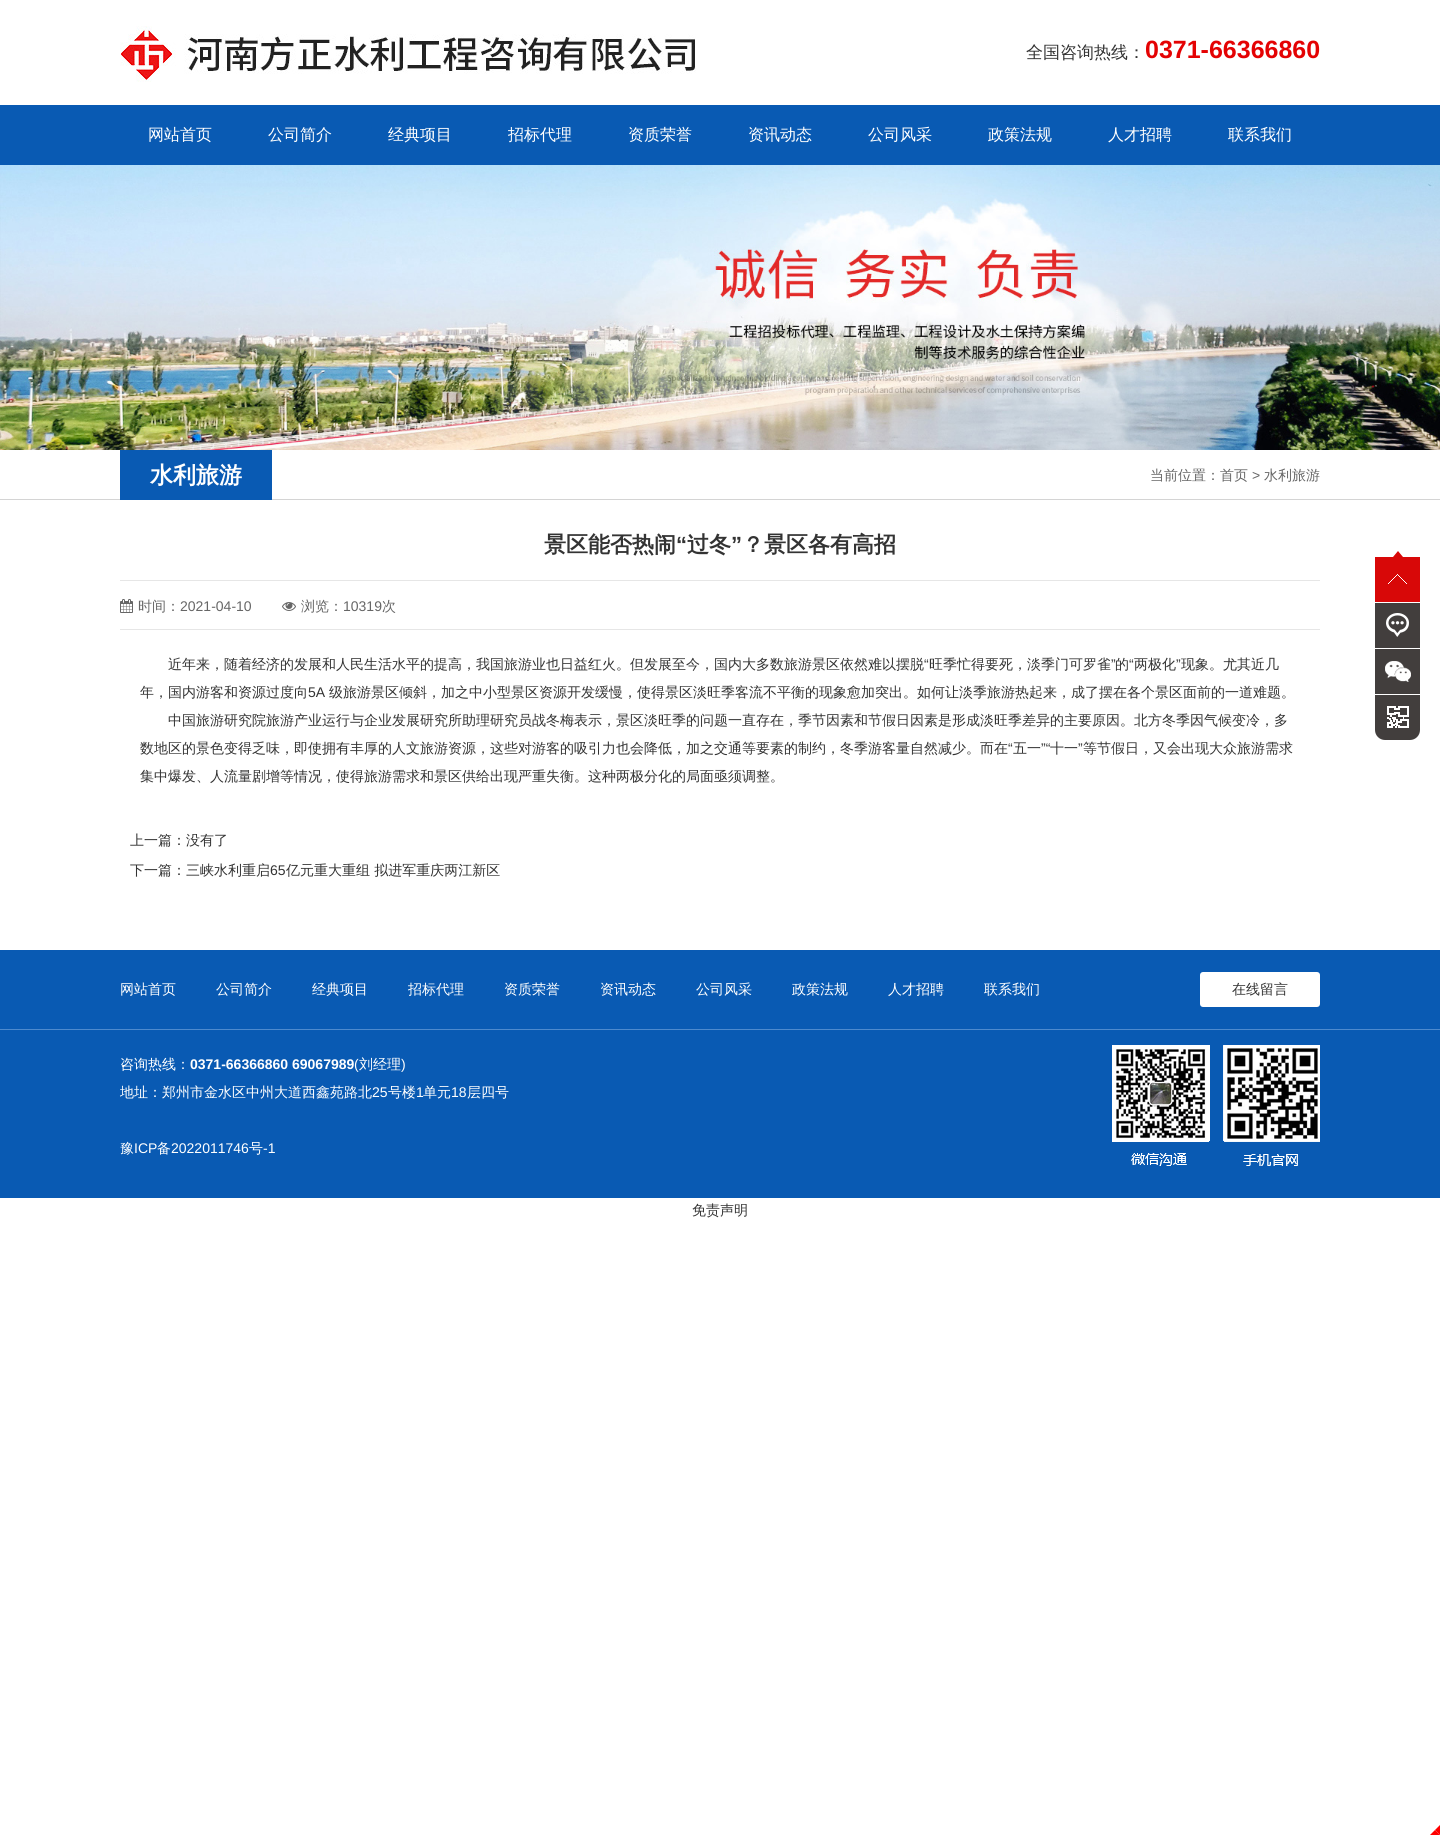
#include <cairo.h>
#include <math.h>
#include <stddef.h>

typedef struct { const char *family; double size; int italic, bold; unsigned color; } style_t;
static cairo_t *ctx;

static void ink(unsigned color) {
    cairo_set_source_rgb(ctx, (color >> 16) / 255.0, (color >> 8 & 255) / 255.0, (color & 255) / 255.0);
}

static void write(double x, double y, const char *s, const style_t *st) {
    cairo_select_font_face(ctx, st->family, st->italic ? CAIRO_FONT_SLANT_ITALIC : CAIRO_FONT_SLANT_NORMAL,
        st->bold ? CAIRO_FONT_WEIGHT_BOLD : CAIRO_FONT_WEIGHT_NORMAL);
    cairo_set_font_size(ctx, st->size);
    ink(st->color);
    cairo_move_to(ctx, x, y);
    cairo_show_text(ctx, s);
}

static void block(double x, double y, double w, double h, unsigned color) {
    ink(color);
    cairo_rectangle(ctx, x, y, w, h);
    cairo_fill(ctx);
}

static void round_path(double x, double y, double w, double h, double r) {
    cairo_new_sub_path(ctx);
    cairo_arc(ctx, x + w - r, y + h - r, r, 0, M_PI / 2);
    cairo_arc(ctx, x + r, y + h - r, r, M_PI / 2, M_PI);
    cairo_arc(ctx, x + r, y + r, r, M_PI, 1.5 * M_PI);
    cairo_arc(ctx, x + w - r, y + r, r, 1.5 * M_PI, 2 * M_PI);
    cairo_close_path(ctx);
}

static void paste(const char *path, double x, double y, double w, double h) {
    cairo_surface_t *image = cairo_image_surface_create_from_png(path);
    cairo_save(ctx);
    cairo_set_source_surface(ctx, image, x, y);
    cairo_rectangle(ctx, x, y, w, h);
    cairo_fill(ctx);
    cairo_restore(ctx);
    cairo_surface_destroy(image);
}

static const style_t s1 = {"WenQuanYi Zen Hei Medium", 17, 0, 0, 0x333333};
static const style_t s2 = {"Liberation Sans", 25, 0, 1, 0xe40203};
static const style_t s3 = {"WenQuanYi Zen Hei Medium", 16, 0, 0, 0xffffff};
static const style_t s4 = {"WenQuanYi Zen Hei", 23, 0, 1, 0xffffff};
static const style_t s5 = {"WenQuanYi Zen Hei Medium", 14, 0, 0, 0x666666};
static const style_t s6 = {"Liberation Sans", 14, 0, 0, 0x666666};
static const style_t s7 = {"WenQuanYi Zen Hei", 22, 0, 1, 0x333333};
static const style_t s8 = {"Liberation Sans", 22, 0, 1, 0x333333};
static const style_t s9 = {"WenQuanYi Zen Hei Medium", 14, 0, 0, 0x333333};
static const style_t s10 = {"Liberation Sans", 14, 0, 0, 0x333333};
static const style_t s11 = {"WenQuanYi Zen Hei Medium", 14, 0, 0, 0xffffff};
static const style_t s12 = {"Liberation Sans", 14, 0, 1, 0xffffff};
static const style_t s13 = {"Liberation Sans", 14, 0, 0, 0xffffff};

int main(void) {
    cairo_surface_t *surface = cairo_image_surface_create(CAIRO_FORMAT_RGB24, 1440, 1835);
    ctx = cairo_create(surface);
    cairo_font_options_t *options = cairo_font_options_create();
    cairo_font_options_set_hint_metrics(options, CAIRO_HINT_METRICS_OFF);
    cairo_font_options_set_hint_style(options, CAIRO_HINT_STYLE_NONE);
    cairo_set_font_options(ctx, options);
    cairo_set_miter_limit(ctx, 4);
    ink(0xffffff);
    cairo_paint(ctx);
    paste("pic1.png", 120, 26, 576, 56);
    write(1026, 58, "全国咨询热线：", &s1);
    write(1145, 58, "0371-66366860", &s2);
    block(0, 105, 1440, 60, 0x095ab3);
    write(148, 140, "网站首页", &s3);
    write(268, 140, "公司简介", &s3);
    write(388, 140, "经典项目", &s3);
    write(508, 140, "招标代理", &s3);
    write(628, 140, "资质荣誉", &s3);
    write(748, 140, "资讯动态", &s3);
    write(868, 140, "公司风采", &s3);
    write(988, 140, "政策法规", &s3);
    write(1108, 140, "人才招聘", &s3);
    write(1228, 140, "联系我们", &s3);
    paste("pic2.png", 0, 165, 1440, 285);
    block(0, 499, 1440, 1, 0xd4d4d4);
    block(120, 450, 152, 50, 0x095ab3);
    write(150, 483, "水利旅游", &s4);
    write(1150, 480, "当前位置：首页", &s5);
    write(1252, 480, ">", &s6);
    write(1264, 480, "水利旅游", &s5);
    write(544, 552, "景区能否热闹", &s7);
    write(676, 552, "“", &s8);
    write(687, 552, "过冬", &s7);
    write(731, 552, "”", &s8);
    write(742, 552, "？景区各有高招", &s7);
    block(120, 580, 1200, 1, 0xe6e6e6);
    block(120, 629, 1200, 1, 0xe6e6e6);
    paste("pic3.png", 120, 599, 13, 14);
    write(138, 611, "时间：", &s5);
    write(180, 611, "2021-04-10", &s6);
    paste("pic4.png", 282, 602, 14, 9);
    write(301, 611, "浏览：", &s5);
    write(343, 611, "10319", &s6);
    write(382, 611, "次", &s5);
    write(168, 669, "近年来，随着经济的发展和人民生活水平的提高，我国旅游业也日益红火。但发展至今，国内大多数旅游景区依然难以摆脱", &s9);
    write(924, 669, "“", &s10);
    write(929, 669, "旺季忙得要死，淡季门可罗雀", &s9);
    write(1111, 669, "”", &s10);
    write(1115, 669, "的", &s9);
    write(1129, 669, "“", &s10);
    write(1134, 669, "两极化", &s9);
    write(1176, 669, "”", &s10);
    write(1181, 669, "现象。尤其近几", &s9);
    write(140, 697, "年，国内游客和资源过度向", &s9);
    write(308, 697, "5A", &s10);
    write(329, 697, "级旅游景区倾斜，加之中小型景区资源开发缓慢，使得景区淡旺季客流不平衡的现象愈加突出。如何让淡季旅游热起来，成了摆在各个景区面前的一道难题。", &s9);
    write(168, 725, "中国旅游研究院旅游产业运行与企业发展研究所助理研究员战冬梅表示，景区淡旺季的问题一直存在，季节因素和节假日因素是形成淡旺季差异的主要原因。北方冬季因气候变冷，多", &s9);
    write(140, 753, "数地区的景色变得乏味，即使拥有丰厚的人文旅游资源，这些对游客的吸引力也会降低，加之交通等要素的制约，冬季游客量自然减少。而在", &s9);
    write(1008, 753, "“", &s10);
    write(1013, 753, "五一", &s9);
    write(1041, 753, "”“", &s10);
    write(1050, 753, "十一", &s9);
    write(1078, 753, "”", &s10);
    write(1083, 753, "等节假日，又会出现大众旅游需求", &s9);
    write(140, 781, "集中爆发、人流量剧增等情况，使得旅游需求和景区供给出现严重失衡。这种两极分化的局面亟须调整。", &s9);
    write(130, 845, "上一篇：没有了", &s9);
    write(130, 875, "下一篇：三峡水利重启", &s9);
    write(270, 875, "65", &s10);
    write(286, 875, "亿元重大重组 拟进军重庆两江新区", &s9);
    paste("pic5.png", 1393, 551, 10, 6);
    block(1375, 557, 45, 45, 0xd80808);
    paste("pic6.png", 1388, 574, 19, 10);
    block(1375, 603, 45, 45, 0x423e3d);
    paste("pic7.png", 1386, 613, 23, 24);
    block(1375, 649, 45, 45, 0x423e3d);
    paste("pic8.png", 1385, 661, 26, 21);
    cairo_new_path(ctx);
    cairo_move_to(ctx, 1375, 695);
    cairo_line_to(ctx, 1420, 695);
    cairo_line_to(ctx, 1420, 730);
    cairo_curve_to(ctx, 1420, 735.5, 1415.5, 740, 1410, 740);
    cairo_line_to(ctx, 1385, 740);
    cairo_curve_to(ctx, 1379.5, 740, 1375, 735.5, 1375, 730);
    cairo_close_path(ctx);
    cairo_fill(ctx);
    paste("pic9.png", 1387, 706, 22, 22);
    block(0, 950, 1440, 248, 0x095ab3);
    block(0, 1029, 1440, 1, 0x4d8ace);
    write(120, 994, "网站首页", &s11);
    write(216, 994, "公司简介", &s11);
    write(312, 994, "经典项目", &s11);
    write(408, 994, "招标代理", &s11);
    write(504, 994, "资质荣誉", &s11);
    write(600, 994, "资讯动态", &s11);
    write(696, 994, "公司风采", &s11);
    write(792, 994, "政策法规", &s11);
    write(888, 994, "人才招聘", &s11);
    write(984, 994, "联系我们", &s11);
    round_path(1200, 972, 120, 35, 3);
    cairo_fill(ctx);
    write(1232, 994, "在线留言", &s9);
    write(120, 1069, "咨询热线：", &s11);
    write(190, 1069, "0371-66366860 69067989", &s12);
    write(354, 1069, "(", &s13);
    write(359, 1069, "刘经理", &s11);
    write(401, 1069, ")", &s13);
    write(120, 1097, "地址：郑州市金水区中州大道西鑫苑路北", &s11);
    write(372, 1097, "25", &s13);
    write(388, 1097, "号楼", &s11);
    write(416, 1097, "1", &s13);
    write(423, 1097, "单元", &s11);
    write(451, 1097, "18", &s13);
    write(467, 1097, "层四号", &s11);
    write(120, 1153, "豫", &s11);
    write(134, 1153, "ICP", &s13);
    write(157, 1153, "备", &s11);
    write(171, 1153, "2022011746", &s13);
    write(249, 1153, "号", &s11);
    write(263, 1153, "-1", &s13);
    paste("pic10.png", 1112, 1045, 208, 121);
    write(692, 1215, "免责声明", &s9);
    ink(0xff0000);
    cairo_new_path(ctx);
    cairo_move_to(ctx, 1440, 1825);
    cairo_line_to(ctx, 1440, 1835);
    cairo_line_to(ctx, 1435, 1830);
    cairo_close_path(ctx);
    cairo_fill(ctx);
    cairo_new_path(ctx);
    cairo_move_to(ctx, 1440, 1835);
    cairo_line_to(ctx, 1430, 1835);
    cairo_line_to(ctx, 1435, 1830);
    cairo_close_path(ctx);
    cairo_fill(ctx);
    cairo_surface_write_to_png(surface, "screenshot.png");
    cairo_font_options_destroy(options);
    cairo_destroy(ctx);
    cairo_surface_destroy(surface);
    return 0;
}
